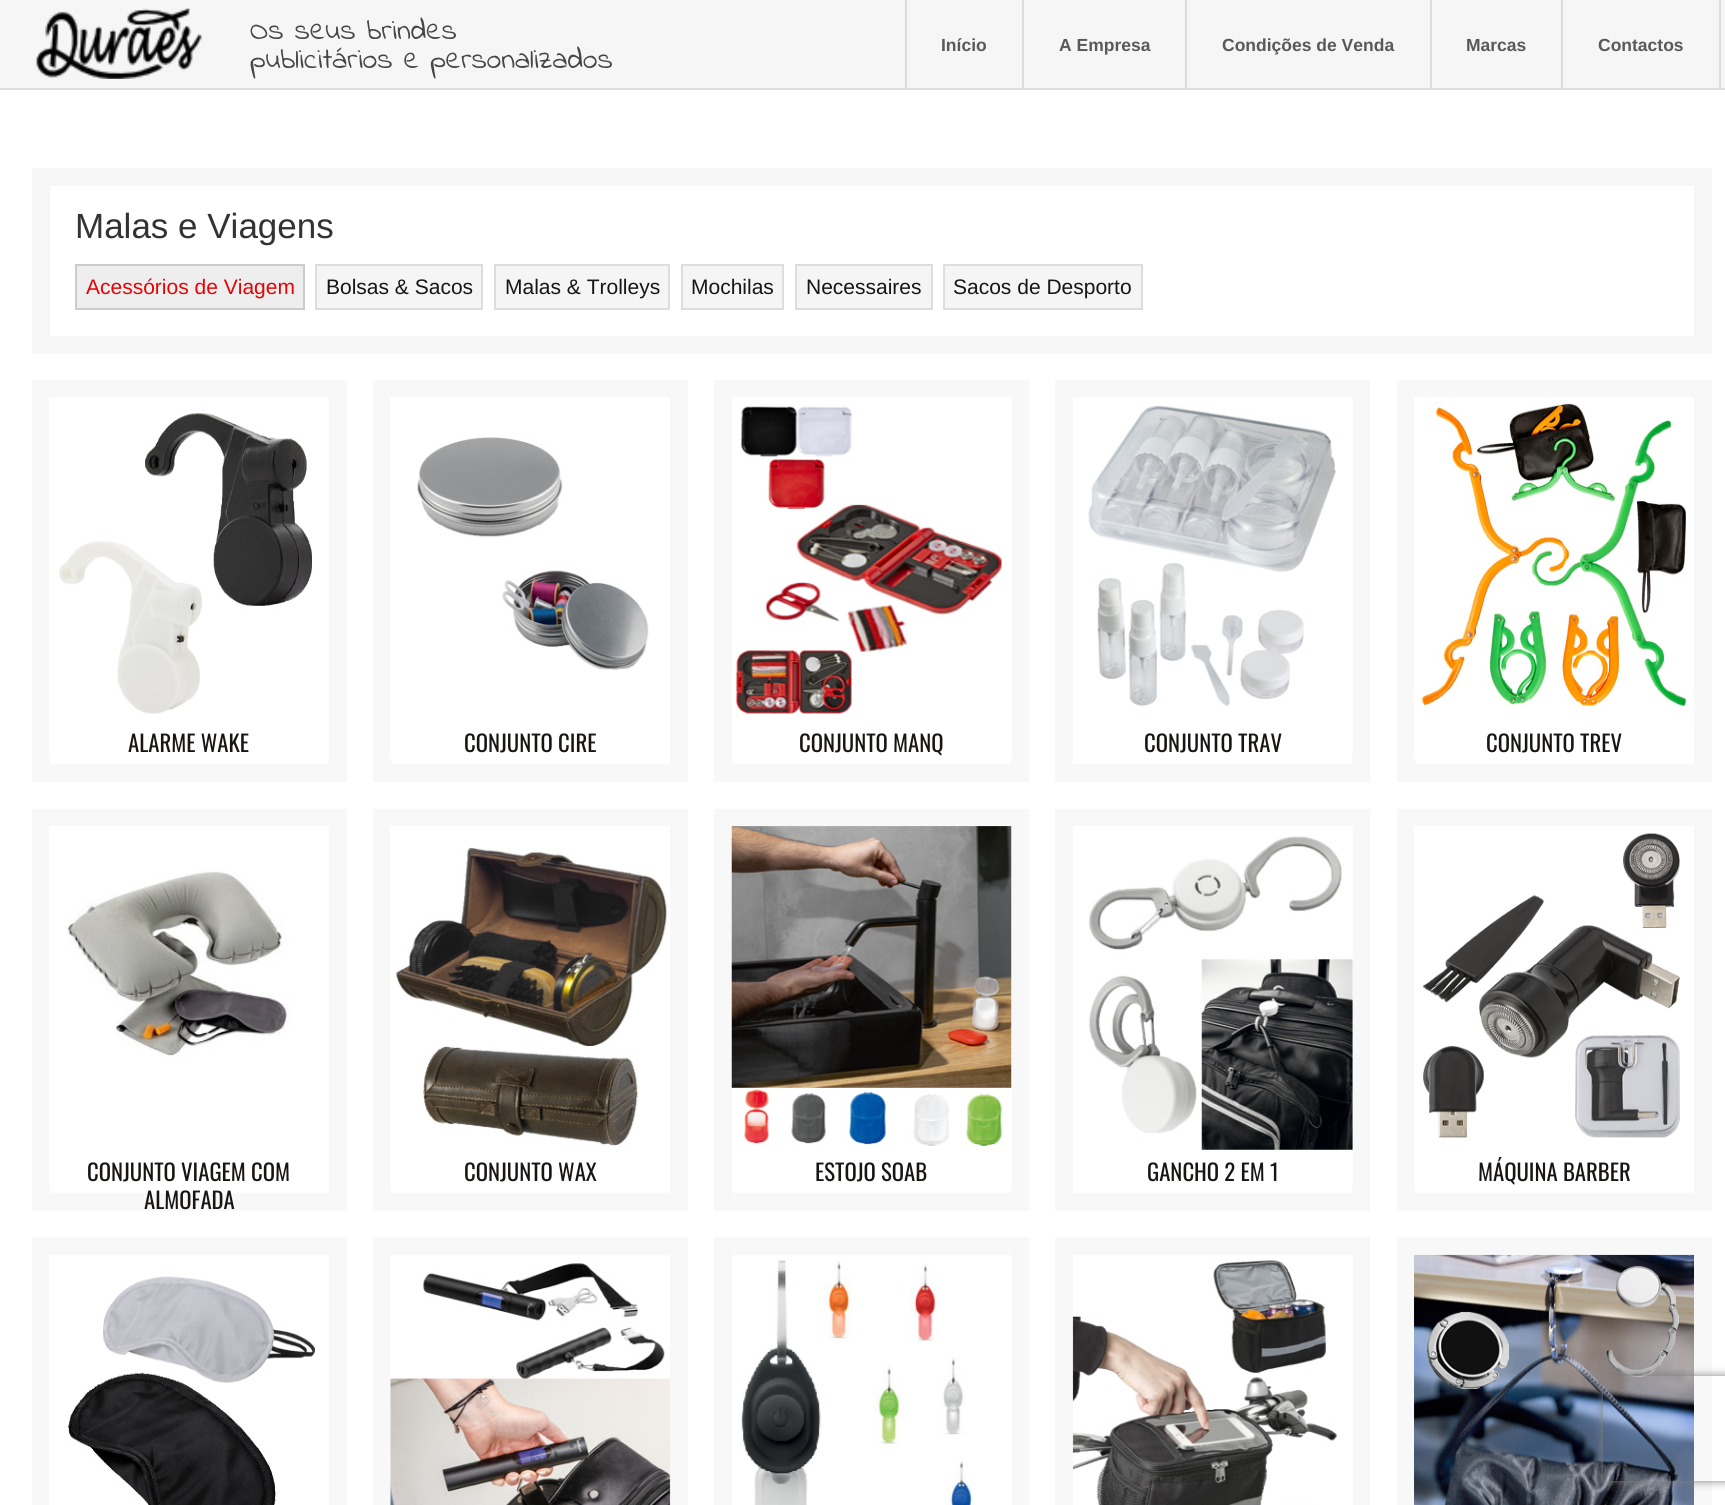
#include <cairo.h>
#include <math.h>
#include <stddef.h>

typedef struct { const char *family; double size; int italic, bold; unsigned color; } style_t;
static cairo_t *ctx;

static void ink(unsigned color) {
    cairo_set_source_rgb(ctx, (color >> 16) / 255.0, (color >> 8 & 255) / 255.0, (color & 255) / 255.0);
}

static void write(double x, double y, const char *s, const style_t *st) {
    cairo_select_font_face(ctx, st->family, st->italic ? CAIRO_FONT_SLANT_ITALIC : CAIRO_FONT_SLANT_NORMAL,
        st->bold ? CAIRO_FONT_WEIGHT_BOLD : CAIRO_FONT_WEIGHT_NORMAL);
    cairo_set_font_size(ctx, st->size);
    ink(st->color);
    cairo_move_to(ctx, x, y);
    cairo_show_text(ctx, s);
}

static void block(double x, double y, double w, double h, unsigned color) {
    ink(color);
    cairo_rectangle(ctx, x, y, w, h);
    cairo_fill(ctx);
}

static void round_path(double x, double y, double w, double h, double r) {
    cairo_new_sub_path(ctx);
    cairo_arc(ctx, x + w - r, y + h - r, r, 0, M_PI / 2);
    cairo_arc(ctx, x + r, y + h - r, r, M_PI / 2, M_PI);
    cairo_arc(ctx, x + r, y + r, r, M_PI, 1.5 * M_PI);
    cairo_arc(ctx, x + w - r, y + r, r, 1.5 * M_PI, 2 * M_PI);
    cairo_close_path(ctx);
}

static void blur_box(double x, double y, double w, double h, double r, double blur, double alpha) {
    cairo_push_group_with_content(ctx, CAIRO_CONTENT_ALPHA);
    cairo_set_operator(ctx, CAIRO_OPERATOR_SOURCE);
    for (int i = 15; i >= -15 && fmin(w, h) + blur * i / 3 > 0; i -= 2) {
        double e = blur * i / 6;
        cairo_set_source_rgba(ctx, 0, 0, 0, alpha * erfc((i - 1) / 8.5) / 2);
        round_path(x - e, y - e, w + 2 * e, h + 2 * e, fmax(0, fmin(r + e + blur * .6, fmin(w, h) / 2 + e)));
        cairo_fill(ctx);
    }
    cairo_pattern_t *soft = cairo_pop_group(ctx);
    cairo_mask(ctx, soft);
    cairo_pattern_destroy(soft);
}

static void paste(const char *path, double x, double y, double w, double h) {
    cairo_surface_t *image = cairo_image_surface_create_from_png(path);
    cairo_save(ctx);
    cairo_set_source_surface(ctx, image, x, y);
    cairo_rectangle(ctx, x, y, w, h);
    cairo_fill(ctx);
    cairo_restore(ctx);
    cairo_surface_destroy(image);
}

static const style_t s1 = {"Indie Flower", 29.75, 0, 0, 0x464646};
static const style_t s2 = {"Liberation Sans", 17.5, 0, 1, 0x58595b};
static const style_t s3 = {"Liberation Sans", 35, 0, 0, 0x333333};
static const style_t s4 = {"Liberation Sans", 21, 0, 0, 0xe40405};
static const style_t s5 = {"Liberation Sans", 21, 0, 0, 0x181512};
static const style_t s6 = {"Oswald", 22.75, 0, 0, 0x181512};

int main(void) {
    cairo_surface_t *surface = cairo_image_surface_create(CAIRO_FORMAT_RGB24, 1725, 1505);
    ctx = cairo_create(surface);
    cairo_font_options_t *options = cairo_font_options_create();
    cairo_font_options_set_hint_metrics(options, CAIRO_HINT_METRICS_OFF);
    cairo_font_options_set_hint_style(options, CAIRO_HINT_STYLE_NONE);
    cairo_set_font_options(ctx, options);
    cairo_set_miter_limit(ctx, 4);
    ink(0xffffff);
    cairo_paint(ctx);
    block(0, 0, 1725, 88, 0xf6f6f6);
    block(0, 88, 1725, 2, 0xdddddd);
    paste("pic1.png", 36, 8, 166, 71);
    write(250, 39, "Os seus brindes", &s1);
    write(250, 68, "publicitários e personalizados", &s1);
    block(1022, 0, 2, 88, 0xdddddd);
    block(905, 0, 2, 88, 0xdddddd);
    write(941, 51, "Início", &s2);
    block(1185, 0, 2, 88, 0xdddddd);
    write(1059, 51, "A Empresa", &s2);
    block(1430, 0, 2, 88, 0xdddddd);
    write(1222, 51, "Condições de Venda", &s2);
    block(1561, 0, 2, 88, 0xdddddd);
    write(1466, 51, "Marcas", &s2);
    block(1719, 0, 2, 88, 0xdddddd);
    write(1598, 51, "Contactos", &s2);
    cairo_rectangle(ctx, 41, 177, 1662, 168);
    ink(0xf6f6f6);
    cairo_set_line_width(ctx, 18);
    cairo_stroke(ctx);
    write(75, 238, "Malas e Viagens", &s3);
    ink(0xeeeeee);
    cairo_rectangle(ctx, 76, 265, 228, 44);
    cairo_fill_preserve(ctx);
    ink(0xcccccc);
    cairo_set_line_width(ctx, 2);
    cairo_stroke(ctx);
    write(86, 294, "Acessórios de Viagem", &s4);
    ink(0xf5f5f5);
    cairo_rectangle(ctx, 316, 265, 166, 44);
    cairo_fill_preserve(ctx);
    ink(0xdddddd);
    cairo_stroke(ctx);
    write(326, 294, "Bolsas & Sacos", &s5);
    ink(0xf5f5f5);
    cairo_rectangle(ctx, 495, 265, 174, 44);
    cairo_fill_preserve(ctx);
    ink(0xdddddd);
    cairo_stroke(ctx);
    write(505, 294, "Malas & Trolleys", &s5);
    ink(0xf5f5f5);
    cairo_rectangle(ctx, 682, 265, 101, 44);
    cairo_fill_preserve(ctx);
    ink(0xdddddd);
    cairo_stroke(ctx);
    write(691, 294, "Mochilas", &s5);
    ink(0xf5f5f5);
    cairo_rectangle(ctx, 796, 265, 136, 44);
    cairo_fill_preserve(ctx);
    ink(0xdddddd);
    cairo_stroke(ctx);
    write(806, 294, "Necessaires", &s5);
    ink(0xf5f5f5);
    cairo_rectangle(ctx, 944, 265, 198, 44);
    cairo_fill_preserve(ctx);
    ink(0xdddddd);
    cairo_stroke(ctx);
    write(953, 294, "Sacos de Desporto", &s5);
    cairo_rectangle(ctx, 41, 389, 297, 384);
    ink(0xf8f8f8);
    cairo_set_line_width(ctx, 18);
    cairo_stroke(ctx);
    block(49, 397, 280, 359, 0xffffff);
    paste("pic2.png", 59, 413, 253, 301);
    write(128, 752, "ALARME WAKE", &s6);
    cairo_rectangle(ctx, 382, 389, 297, 384);
    ink(0xf8f8f8);
    cairo_stroke(ctx);
    block(390, 397, 280, 359, 0xffffff);
    paste("pic3.png", 417, 437, 232, 233);
    write(464, 752, "CONJUNTO CIRE", &s6);
    cairo_rectangle(ctx, 723, 389, 297, 384);
    ink(0xf8f8f8);
    cairo_stroke(ctx);
    block(732, 397, 280, 359, 0xffffff);
    paste("pic4.png", 736, 406, 266, 308);
    write(799, 752, "CONJUNTO MANQ", &s6);
    cairo_rectangle(ctx, 1064, 389, 297, 384);
    ink(0xf8f8f8);
    cairo_stroke(ctx);
    block(1073, 397, 280, 359, 0xffffff);
    paste("pic5.png", 1088, 405, 248, 301);
    write(1144, 752, "CONJUNTO TRAV", &s6);
    cairo_rectangle(ctx, 1406, 389, 297, 384);
    ink(0xf8f8f8);
    cairo_stroke(ctx);
    block(1414, 397, 280, 359, 0xffffff);
    paste("pic6.png", 1422, 403, 264, 303);
    write(1486, 752, "CONJUNTO TREV", &s6);
    cairo_rectangle(ctx, 41, 818, 297, 384);
    ink(0xf8f8f8);
    cairo_stroke(ctx);
    block(49, 826, 280, 359, 0xffffff);
    paste("pic7.png", 67, 869, 224, 188);
    write(87, 1181, "CONJUNTO VIAGEM COM", &s6);
    write(144, 1209, "ALMOFADA", &s6);
    cairo_rectangle(ctx, 382, 818, 297, 384);
    ink(0xf8f8f8);
    cairo_stroke(ctx);
    block(390, 826, 280, 359, 0xffffff);
    paste("pic8.png", 396, 847, 271, 299);
    write(464, 1181, "CONJUNTO WAX", &s6);
    cairo_rectangle(ctx, 723, 818, 297, 384);
    ink(0xf8f8f8);
    cairo_stroke(ctx);
    block(732, 826, 280, 359, 0xffffff);
    paste("pic9.png", 731, 826, 281, 320);
    write(815, 1181, "ESTOJO SOAB", &s6);
    cairo_rectangle(ctx, 1064, 818, 297, 384);
    ink(0xf8f8f8);
    cairo_stroke(ctx);
    block(1073, 826, 280, 359, 0xffffff);
    paste("pic10.png", 1088, 836, 265, 314);
    write(1147, 1181, "GANCHO 2 EM 1", &s6);
    cairo_rectangle(ctx, 1406, 818, 297, 384);
    ink(0xf8f8f8);
    cairo_stroke(ctx);
    block(1414, 826, 280, 359, 0xffffff);
    paste("pic11.png", 1423, 833, 257, 305);
    write(1478, 1181, "MÁQUINA BARBER", &s6);
    cairo_rectangle(ctx, 41, 1246, 297, 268);
    ink(0xf8f8f8);
    cairo_stroke(ctx);
    block(49, 1255, 1, 250, 0xffffff);
    paste("pic12.png", 68, 1276, 247, 229);
    cairo_rectangle(ctx, 382, 1246, 297, 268);
    ink(0xf8f8f8);
    cairo_stroke(ctx);
    block(390, 1255, 1, 250, 0xffffff);
    paste("pic13.png", 390, 1263, 281, 242);
    cairo_rectangle(ctx, 723, 1246, 297, 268);
    ink(0xf8f8f8);
    cairo_stroke(ctx);
    block(1011, 1255, 1, 250, 0xffffff);
    paste("pic14.png", 741, 1260, 233, 245);
    cairo_rectangle(ctx, 1064, 1246, 297, 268);
    ink(0xf8f8f8);
    cairo_stroke(ctx);
    block(1352, 1255, 1, 250, 0xffffff);
    paste("pic15.png", 1072, 1260, 265, 245);
    cairo_rectangle(ctx, 1406, 1246, 297, 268);
    ink(0xf8f8f8);
    cairo_stroke(ctx);
    paste("pic16.png", 1414, 1254, 280, 251);
    cairo_save(ctx);
    cairo_set_fill_rule(ctx, CAIRO_FILL_RULE_EVEN_ODD);
    cairo_new_path(ctx);
    cairo_move_to(ctx, 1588, 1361);
    cairo_line_to(ctx, 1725, 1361);
    cairo_line_to(ctx, 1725, 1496);
    cairo_line_to(ctx, 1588, 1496);
    cairo_close_path(ctx);
    cairo_move_to(ctx, 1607, 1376);
    cairo_line_to(ctx, 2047, 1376);
    cairo_curve_to(ctx, 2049, 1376, 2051, 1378, 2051, 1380);
    cairo_line_to(ctx, 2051, 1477);
    cairo_curve_to(ctx, 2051, 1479, 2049, 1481, 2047, 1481);
    cairo_line_to(ctx, 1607, 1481);
    cairo_curve_to(ctx, 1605, 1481, 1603, 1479, 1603, 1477);
    cairo_line_to(ctx, 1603, 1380);
    cairo_curve_to(ctx, 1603, 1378, 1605, 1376, 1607, 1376);
    cairo_close_path(ctx);
    cairo_clip(ctx);
    ink(0x808080);
    blur_box(1603, 1376, 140, 105, 4, 4.5, 1);
    cairo_restore(ctx);
    cairo_surface_write_to_png(surface, "screenshot.png");
    cairo_font_options_destroy(options);
    cairo_destroy(ctx);
    cairo_surface_destroy(surface);
    return 0;
}
